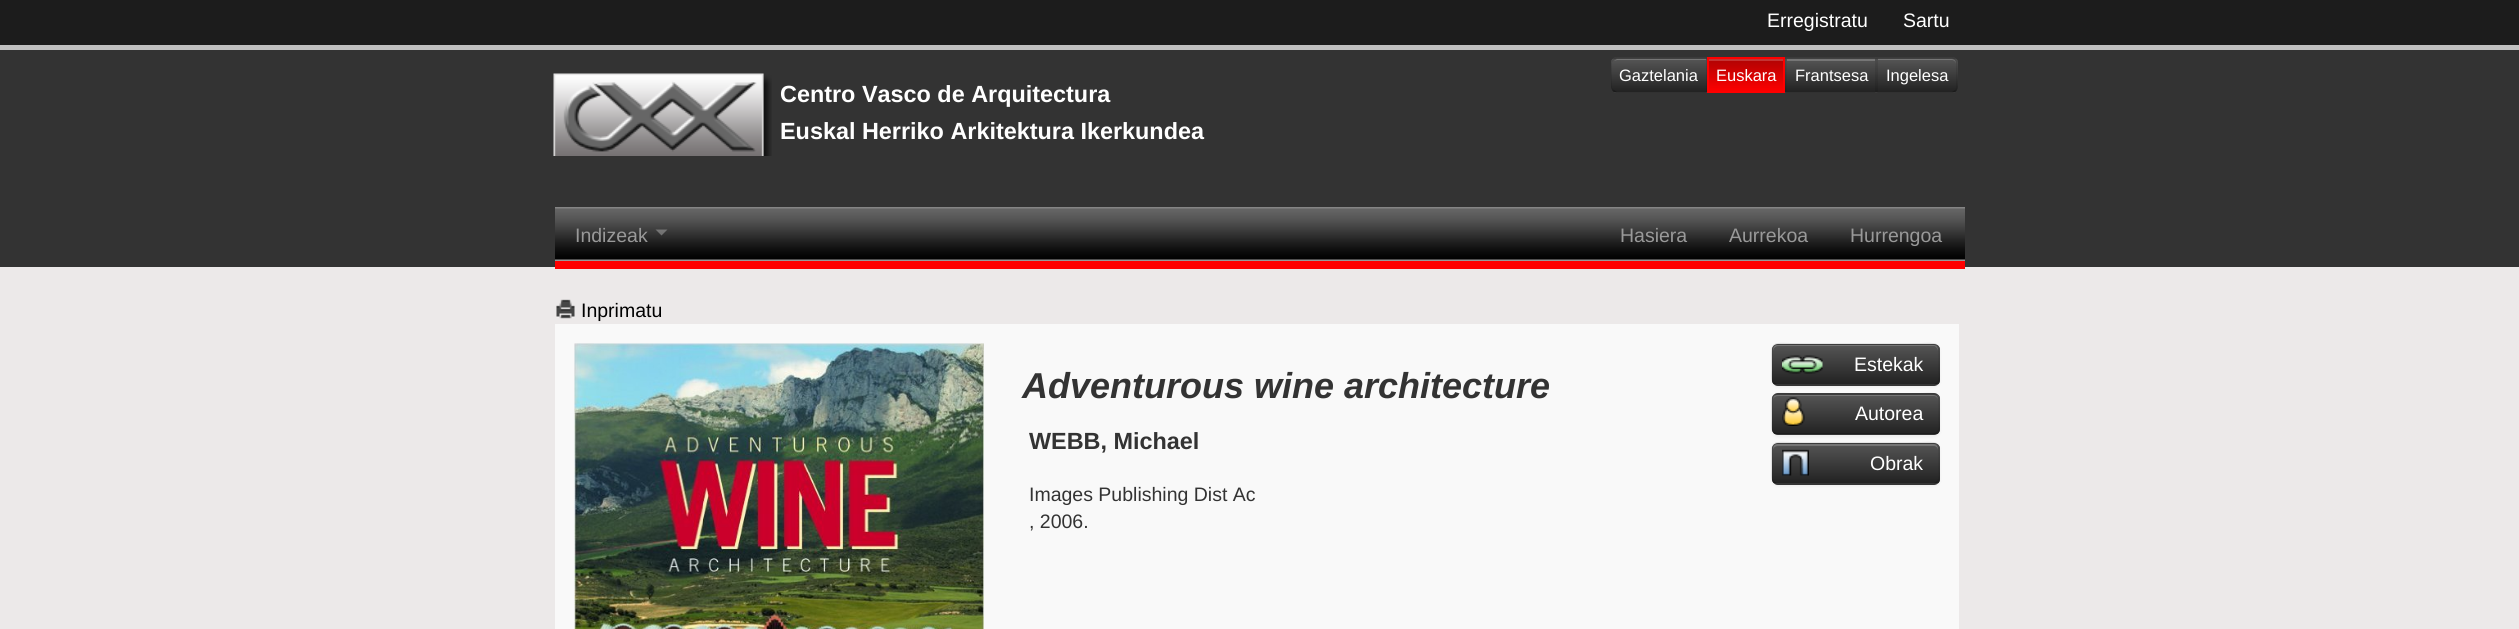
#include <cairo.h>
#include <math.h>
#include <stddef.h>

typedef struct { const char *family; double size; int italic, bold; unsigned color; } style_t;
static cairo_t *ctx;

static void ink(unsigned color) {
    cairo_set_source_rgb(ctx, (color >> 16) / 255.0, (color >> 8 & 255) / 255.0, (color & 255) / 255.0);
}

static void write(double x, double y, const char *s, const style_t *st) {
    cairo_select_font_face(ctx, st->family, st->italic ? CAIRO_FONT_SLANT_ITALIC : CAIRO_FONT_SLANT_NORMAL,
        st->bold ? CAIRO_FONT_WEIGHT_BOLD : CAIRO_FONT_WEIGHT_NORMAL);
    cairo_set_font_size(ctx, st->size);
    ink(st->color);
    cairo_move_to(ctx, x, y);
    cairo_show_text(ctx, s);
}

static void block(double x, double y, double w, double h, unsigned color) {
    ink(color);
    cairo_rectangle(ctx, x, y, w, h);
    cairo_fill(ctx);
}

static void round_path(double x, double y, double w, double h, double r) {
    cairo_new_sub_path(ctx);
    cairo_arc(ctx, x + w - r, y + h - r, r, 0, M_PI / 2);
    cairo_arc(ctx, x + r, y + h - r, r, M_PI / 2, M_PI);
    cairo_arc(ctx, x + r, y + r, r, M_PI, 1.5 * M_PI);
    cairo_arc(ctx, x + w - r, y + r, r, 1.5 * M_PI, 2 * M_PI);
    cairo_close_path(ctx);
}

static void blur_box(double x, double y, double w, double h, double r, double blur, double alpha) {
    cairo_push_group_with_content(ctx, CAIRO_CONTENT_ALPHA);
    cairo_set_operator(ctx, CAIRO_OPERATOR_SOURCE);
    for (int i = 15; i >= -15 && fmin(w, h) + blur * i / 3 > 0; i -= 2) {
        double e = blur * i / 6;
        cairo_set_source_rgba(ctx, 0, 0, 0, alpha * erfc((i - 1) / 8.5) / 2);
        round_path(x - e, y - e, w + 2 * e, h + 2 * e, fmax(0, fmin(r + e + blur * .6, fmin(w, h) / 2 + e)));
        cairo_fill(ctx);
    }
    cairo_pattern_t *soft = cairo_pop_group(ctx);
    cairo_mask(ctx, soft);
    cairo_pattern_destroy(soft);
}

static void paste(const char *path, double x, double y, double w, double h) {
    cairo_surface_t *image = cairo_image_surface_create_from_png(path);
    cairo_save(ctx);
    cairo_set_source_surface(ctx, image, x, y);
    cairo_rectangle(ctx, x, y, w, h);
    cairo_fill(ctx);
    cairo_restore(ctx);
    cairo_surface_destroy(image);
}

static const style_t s1 = {"Liberation Sans", 19.5, 0, 0, 0xffffff};
static const style_t s2 = {"Liberation Sans", 16.5, 0, 0, 0xffffff};
static const style_t s3 = {"Liberation Sans", 23.4, 0, 1, 0xffffff};
static const style_t s4 = {"Liberation Sans", 19.5, 0, 0, 0x999999};
static const style_t s5 = {"Liberation Sans", 19.5, 0, 0, 0x000000};
static const style_t s6 = {"Liberation Sans", 36, 1, 1, 0x333333};
static const style_t s7 = {"Liberation Sans", 23.4, 0, 1, 0x333333};
static const style_t s8 = {"Liberation Sans", 19.5, 0, 0, 0x333333};

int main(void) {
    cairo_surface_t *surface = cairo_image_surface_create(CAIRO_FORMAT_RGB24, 2519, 629);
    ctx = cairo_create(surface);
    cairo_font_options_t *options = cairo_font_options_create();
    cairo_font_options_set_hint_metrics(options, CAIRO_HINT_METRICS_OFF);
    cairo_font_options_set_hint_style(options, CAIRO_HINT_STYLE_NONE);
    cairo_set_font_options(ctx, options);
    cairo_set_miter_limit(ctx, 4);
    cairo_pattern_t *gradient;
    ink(0xece9e9);
    cairo_paint(ctx);
    block(0, 50, 2519, 217, 0x333333);
    block(0, 0, 2519, 45, 0x1c1c1c);
    block(0, 45, 2519, 5, 0xc0c0c0);
    write(1767, 27, "Erregistratu", &s1);
    write(1903, 27, "Sartu", &s1);
    ink(0x414141);
    cairo_new_path(ctx);
    cairo_move_to(ctx, 1617, 57);
    cairo_line_to(ctx, 1707, 57);
    cairo_line_to(ctx, 1707, 93);
    cairo_line_to(ctx, 1617, 93);
    cairo_curve_to(ctx, 1613.5, 93, 1611, 90.5, 1611, 87);
    cairo_line_to(ctx, 1611, 63);
    cairo_curve_to(ctx, 1611, 59.5, 1613.5, 57, 1617, 57);
    cairo_close_path(ctx);
    cairo_fill(ctx);
    cairo_save(ctx);
    cairo_new_path(ctx);
    cairo_move_to(ctx, 1617, 57);
    cairo_line_to(ctx, 1707, 57);
    cairo_line_to(ctx, 1707, 93);
    cairo_line_to(ctx, 1617, 93);
    cairo_curve_to(ctx, 1613.5, 93, 1611, 90.5, 1611, 87);
    cairo_line_to(ctx, 1611, 63);
    cairo_curve_to(ctx, 1611, 59.5, 1613.5, 57, 1617, 57);
    cairo_close_path(ctx);
    cairo_clip(ctx);
    gradient = cairo_pattern_create_linear(1659, 59, 1659, 92);
    cairo_pattern_add_color_stop_rgba(gradient, 0, 0.333, 0.333, 0.333, 1);
    cairo_pattern_add_color_stop_rgba(gradient, 1, 0.133, 0.133, 0.133, 1);
    cairo_set_source(ctx, gradient);
    cairo_pattern_destroy(gradient);
    cairo_rectangle(ctx, 1611, 59, 96, 33);
    cairo_fill(ctx);
    cairo_restore(ctx);
    ink(0x767676);
    cairo_new_path(ctx);
    cairo_move_to(ctx, 1617, 60);
    cairo_line_to(ctx, 1706, 60);
    cairo_line_to(ctx, 1706, 59);
    cairo_line_to(ctx, 1617, 59);
    cairo_line_to(ctx, 1614, 61);
    cairo_close_path(ctx);
    cairo_fill(ctx);
    cairo_set_source_rgba(ctx, 0, 0, 0, 0.1);
    cairo_new_path(ctx);
    cairo_move_to(ctx, 1617, 57);
    cairo_curve_to(ctx, 1616, 57, 1614, 58, 1613, 59);
    cairo_line_to(ctx, 1614, 60);
    cairo_line_to(ctx, 1617, 58);
    cairo_line_to(ctx, 1706, 58);
    cairo_line_to(ctx, 1707, 57);
    cairo_close_path(ctx);
    cairo_fill(ctx);
    cairo_new_path(ctx);
    cairo_move_to(ctx, 1707, 57);
    cairo_line_to(ctx, 1706, 58);
    cairo_line_to(ctx, 1706, 92);
    cairo_line_to(ctx, 1707, 93);
    cairo_close_path(ctx);
    cairo_fill(ctx);
    cairo_set_source_rgba(ctx, 0, 0, 0, 0.25);
    cairo_new_path(ctx);
    cairo_move_to(ctx, 1707, 93);
    cairo_line_to(ctx, 1706, 92);
    cairo_line_to(ctx, 1617, 92);
    cairo_line_to(ctx, 1614, 90);
    cairo_line_to(ctx, 1613, 91);
    cairo_curve_to(ctx, 1614, 92, 1616, 93, 1617, 93);
    cairo_close_path(ctx);
    cairo_fill(ctx);
    cairo_set_source_rgba(ctx, 0, 0, 0, 0.1);
    cairo_new_path(ctx);
    cairo_move_to(ctx, 1611, 63);
    cairo_line_to(ctx, 1611, 87);
    cairo_curve_to(ctx, 1611, 88.5, 1612, 90, 1613, 91);
    cairo_line_to(ctx, 1614, 90);
    cairo_curve_to(ctx, 1613, 89, 1612, 88, 1612, 87);
    cairo_line_to(ctx, 1612, 63);
    cairo_curve_to(ctx, 1612, 62, 1613, 61, 1614, 60);
    cairo_line_to(ctx, 1613, 59);
    cairo_curve_to(ctx, 1612, 60, 1611, 61.5, 1611, 63);
    cairo_close_path(ctx);
    cairo_fill(ctx);
    write(1619, 81, "Gaztelania", &s2);
    gradient = cairo_pattern_create_linear(1746, 59, 1746, 92);
    cairo_pattern_add_color_stop_rgba(gradient, 0, 0.69, 0.012, 0.012, 1);
    cairo_pattern_add_color_stop_rgba(gradient, 1, 1, 0, 0, 1);
    cairo_set_source(ctx, gradient);
    cairo_pattern_destroy(gradient);
    cairo_rectangle(ctx, 1709, 61, 74, 30);
    cairo_fill(ctx);
    gradient = cairo_pattern_create_linear(1746, 59, 1746, 92);
    cairo_pattern_add_color_stop_rgba(gradient, 0, 0.753, 0.208, 0.208, 1);
    cairo_pattern_add_color_stop_rgba(gradient, 1, 1, 0.2, 0.2, 1);
    cairo_set_source(ctx, gradient);
    cairo_pattern_destroy(gradient);
    cairo_rectangle(ctx, 1709, 59, 75, 2);
    cairo_fill(ctx);
    cairo_rectangle(ctx, 1708, 58, 76, 34);
    ink(0xff0000);
    cairo_stroke(ctx);
    write(1716, 81, "Euskara", &s2);
    block(1785, 57, 92, 36, 0x414141);
    gradient = cairo_pattern_create_linear(1831, 59, 1831, 92);
    cairo_pattern_add_color_stop_rgba(gradient, 0, 0.333, 0.333, 0.333, 1);
    cairo_pattern_add_color_stop_rgba(gradient, 1, 0.133, 0.133, 0.133, 1);
    cairo_set_source(ctx, gradient);
    cairo_pattern_destroy(gradient);
    cairo_rectangle(ctx, 1785, 59, 92, 33);
    cairo_fill(ctx);
    block(1787, 59, 88, 2, 0x767676);
    ink(0x3b3b3b);
    cairo_new_path(ctx);
    cairo_move_to(ctx, 1785, 57);
    cairo_line_to(ctx, 1876, 57);
    cairo_line_to(ctx, 1875, 58);
    cairo_line_to(ctx, 1786, 58);
    cairo_close_path(ctx);
    cairo_fill(ctx);
    cairo_set_source_rgba(ctx, 0, 0, 0, 0.1);
    cairo_new_path(ctx);
    cairo_move_to(ctx, 1876.5, 57);
    cairo_line_to(ctx, 1876.5, 93);
    cairo_line_to(ctx, 1875, 91.5);
    cairo_line_to(ctx, 1875, 58.5);
    cairo_close_path(ctx);
    cairo_fill(ctx);
    ink(0x313131);
    cairo_new_path(ctx);
    cairo_move_to(ctx, 1876, 93);
    cairo_line_to(ctx, 1785, 93);
    cairo_line_to(ctx, 1786, 92);
    cairo_line_to(ctx, 1875, 92);
    cairo_close_path(ctx);
    cairo_fill(ctx);
    cairo_set_source_rgba(ctx, 0, 0, 0, 0.1);
    cairo_new_path(ctx);
    cairo_move_to(ctx, 1785, 93);
    cairo_line_to(ctx, 1785, 57);
    cairo_line_to(ctx, 1786.5, 58.5);
    cairo_line_to(ctx, 1786.5, 91.5);
    cairo_close_path(ctx);
    cairo_fill(ctx);
    write(1795, 81, "Frantsesa", &s2);
    ink(0x414141);
    cairo_new_path(ctx);
    cairo_move_to(ctx, 1877, 57);
    cairo_line_to(ctx, 1952, 57);
    cairo_curve_to(ctx, 1955.5, 57, 1958, 59.5, 1958, 63);
    cairo_line_to(ctx, 1958, 87);
    cairo_curve_to(ctx, 1958, 90.5, 1955.5, 93, 1952, 93);
    cairo_line_to(ctx, 1877, 93);
    cairo_close_path(ctx);
    cairo_fill(ctx);
    cairo_save(ctx);
    cairo_new_path(ctx);
    cairo_move_to(ctx, 1877, 57);
    cairo_line_to(ctx, 1952, 57);
    cairo_curve_to(ctx, 1955.5, 57, 1958, 59.5, 1958, 63);
    cairo_line_to(ctx, 1958, 87);
    cairo_curve_to(ctx, 1958, 90.5, 1955.5, 93, 1952, 93);
    cairo_line_to(ctx, 1877, 93);
    cairo_close_path(ctx);
    cairo_clip(ctx);
    gradient = cairo_pattern_create_linear(1917, 59, 1917, 92);
    cairo_pattern_add_color_stop_rgba(gradient, 0, 0.333, 0.333, 0.333, 1);
    cairo_pattern_add_color_stop_rgba(gradient, 1, 0.133, 0.133, 0.133, 1);
    cairo_set_source(ctx, gradient);
    cairo_pattern_destroy(gradient);
    cairo_rectangle(ctx, 1877, 59, 81, 33);
    cairo_fill(ctx);
    cairo_restore(ctx);
    ink(0x767676);
    cairo_new_path(ctx);
    cairo_move_to(ctx, 1878, 60);
    cairo_line_to(ctx, 1952, 60);
    cairo_curve_to(ctx, 1954, 60, 1956, 62, 1956, 64);
    cairo_curve_to(ctx, 1956, 61, 1954, 59, 1951, 59);
    cairo_line_to(ctx, 1878, 59);
    cairo_close_path(ctx);
    cairo_fill(ctx);
    cairo_set_source_rgba(ctx, 0, 0, 0, 0.1);
    cairo_new_path(ctx);
    cairo_move_to(ctx, 1878, 58);
    cairo_line_to(ctx, 1952, 58);
    cairo_line_to(ctx, 1955, 60);
    cairo_line_to(ctx, 1956, 59);
    cairo_curve_to(ctx, 1955, 58, 1953, 57, 1952, 57);
    cairo_line_to(ctx, 1876, 57);
    cairo_close_path(ctx);
    cairo_fill(ctx);
    cairo_new_path(ctx);
    cairo_move_to(ctx, 1957.5, 89);
    cairo_line_to(ctx, 1956, 91.5);
    cairo_line_to(ctx, 1955, 90);
    cairo_curve_to(ctx, 1955.5, 89, 1956, 88, 1956, 87);
    cairo_line_to(ctx, 1956, 63);
    cairo_curve_to(ctx, 1956, 62, 1955.5, 61, 1955, 60);
    cairo_line_to(ctx, 1956, 58.5);
    cairo_line_to(ctx, 1957.5, 61);
    cairo_close_path(ctx);
    cairo_fill(ctx);
    cairo_set_source_rgba(ctx, 0, 0, 0, 0.25);
    cairo_new_path(ctx);
    cairo_move_to(ctx, 1876, 93);
    cairo_line_to(ctx, 1952, 93);
    cairo_curve_to(ctx, 1953, 93, 1955, 92, 1956, 91);
    cairo_line_to(ctx, 1955, 90);
    cairo_line_to(ctx, 1952, 92);
    cairo_line_to(ctx, 1878, 92);
    cairo_close_path(ctx);
    cairo_fill(ctx);
    cairo_set_source_rgba(ctx, 0, 0, 0, 0.1);
    cairo_new_path(ctx);
    cairo_move_to(ctx, 1876.5, 93);
    cairo_line_to(ctx, 1878, 91.5);
    cairo_line_to(ctx, 1878, 58.5);
    cairo_line_to(ctx, 1876.5, 57);
    cairo_close_path(ctx);
    cairo_fill(ctx);
    write(1886, 81, "Ingelesa", &s2);
    paste("pic1.png", 553, 73, 219, 83);
    write(780, 102, "Centro Vasco de Arquitectura", &s3);
    write(780, 139, "Euskal Herriko Arkitektura Ikerkundea", &s3);
    paste("pic2.png", 555, 207, 1410, 54);
    block(555, 261, 1410, 8, 0xff0000);
    write(575, 242, "Indizeak", &s4);
    cairo_set_source_rgba(ctx, 1, 1, 1, 0.3);
    cairo_new_path(ctx);
    cairo_move_to(ctx, 655.5, 229.5);
    cairo_line_to(ctx, 667.5, 229.5);
    cairo_line_to(ctx, 661.5, 235.5);
    cairo_close_path(ctx);
    cairo_fill(ctx);
    write(1620, 242, "Hasiera", &s4);
    write(1729, 242, "Aurrekoa", &s4);
    write(1850, 242, "Hurrengoa", &s4);
    paste("pic3.png", 556, 299, 19, 20);
    write(581, 317, "Inprimatu", &s5);
    block(555, 324, 1404, 305, 0xf9f9f9);
    paste("pic4.png", 574, 343, 410, 286);
    write(1022, 398, "Adventurous wine architecture", &s6);
    write(1029, 449, "WEBB, Michael", &s7);
    write(1029, 501, "Images Publishing Dist Ac", &s8);
    write(1029, 528, ", 2006.", &s8);
    ink(0x000000);
    blur_box(1772, 345, 168, 42, 6, 1.5, 0.05);
    ink(0x414141);
    round_path(1772, 344, 168, 42, 6);
    cairo_fill(ctx);
    cairo_save(ctx);
    round_path(1772, 344, 168, 42, 6);
    cairo_clip(ctx);
    gradient = cairo_pattern_create_linear(1856, 345, 1856, 384);
    cairo_pattern_add_color_stop_rgba(gradient, 0, 0.333, 0.333, 0.333, 1);
    cairo_pattern_add_color_stop_rgba(gradient, 1, 0.133, 0.133, 0.133, 1);
    cairo_set_source(ctx, gradient);
    cairo_pattern_destroy(gradient);
    cairo_rectangle(ctx, 1772, 345, 168, 39);
    cairo_fill(ctx);
    cairo_restore(ctx);
    cairo_set_source_rgba(ctx, 1, 1, 1, 0.2);
    cairo_new_path(ctx);
    cairo_move_to(ctx, 1778, 346);
    cairo_line_to(ctx, 1934, 346);
    cairo_curve_to(ctx, 1936, 346, 1938, 349, 1938, 351);
    cairo_line_to(ctx, 1938, 350);
    cairo_curve_to(ctx, 1938, 347, 1936, 345, 1933, 345);
    cairo_line_to(ctx, 1778, 345);
    cairo_curve_to(ctx, 1775, 345, 1773, 347, 1773, 350);
    cairo_line_to(ctx, 1773, 351);
    cairo_curve_to(ctx, 1773, 349, 1775, 346, 1778, 346);
    cairo_close_path(ctx);
    cairo_fill(ctx);
    cairo_new_path(ctx);
    cairo_move_to(ctx, 1937, 383);
    cairo_curve_to(ctx, 1936, 384, 1935, 385, 1933.5, 385);
    cairo_line_to(ctx, 1777.5, 385);
    cairo_curve_to(ctx, 1776, 385, 1775, 384, 1774, 383);
    cairo_set_source_rgba(ctx, 0, 0, 0, 0.25);
    cairo_set_line_width(ctx, 1.5);
    cairo_stroke(ctx);
    cairo_new_path(ctx);
    cairo_move_to(ctx, 1774, 383);
    cairo_curve_to(ctx, 1770.5, 380, 1772, 373, 1772, 369.5);
    cairo_curve_to(ctx, 1772, 338, 1768, 344, 1803.5, 344);
    cairo_line_to(ctx, 1907.5, 344);
    cairo_curve_to(ctx, 1943, 344, 1939, 338, 1939, 369.5);
    cairo_curve_to(ctx, 1939, 373, 1940.5, 380, 1937, 383);
    cairo_set_source_rgba(ctx, 0, 0, 0, 0.1);
    cairo_stroke(ctx);
    paste("pic5.png", 1782, 355, 41, 19);
    write(1854, 371, "Estekak", &s1);
    ink(0x000000);
    blur_box(1772, 395, 168, 42, 6, 1.5, 0.05);
    ink(0x414141);
    round_path(1772, 393, 168, 42, 6);
    cairo_fill(ctx);
    cairo_save(ctx);
    round_path(1772, 393, 168, 42, 6);
    cairo_clip(ctx);
    gradient = cairo_pattern_create_linear(1856, 395, 1856, 434);
    cairo_pattern_add_color_stop_rgba(gradient, 0, 0.333, 0.333, 0.333, 1);
    cairo_pattern_add_color_stop_rgba(gradient, 1, 0.133, 0.133, 0.133, 1);
    cairo_set_source(ctx, gradient);
    cairo_pattern_destroy(gradient);
    cairo_rectangle(ctx, 1772, 395, 168, 39);
    cairo_fill(ctx);
    cairo_restore(ctx);
    ink(0x767676);
    cairo_new_path(ctx);
    cairo_move_to(ctx, 1778, 396);
    cairo_line_to(ctx, 1934, 396);
    cairo_curve_to(ctx, 1936, 396, 1938, 398, 1938, 400);
    cairo_curve_to(ctx, 1938, 397, 1936, 395, 1933, 395);
    cairo_line_to(ctx, 1778, 395);
    cairo_curve_to(ctx, 1775, 395, 1773, 397, 1773, 400);
    cairo_curve_to(ctx, 1773, 398, 1775, 396, 1778, 396);
    cairo_close_path(ctx);
    cairo_fill(ctx);
    cairo_new_path(ctx);
    cairo_move_to(ctx, 1937, 432.5);
    cairo_curve_to(ctx, 1936, 433.5, 1935, 434, 1933.5, 434);
    cairo_line_to(ctx, 1777.5, 434);
    cairo_curve_to(ctx, 1776, 434, 1775, 433.5, 1774, 432.5);
    cairo_set_source_rgba(ctx, 0, 0, 0, 0.25);
    cairo_stroke(ctx);
    cairo_new_path(ctx);
    cairo_move_to(ctx, 1774, 432.5);
    cairo_curve_to(ctx, 1770.5, 429.5, 1772, 422.5, 1772, 419);
    cairo_curve_to(ctx, 1772, 387.5, 1768, 394, 1803.5, 394);
    cairo_line_to(ctx, 1907.5, 394);
    cairo_curve_to(ctx, 1943, 394, 1939, 387.5, 1939, 419);
    cairo_curve_to(ctx, 1939, 422.5, 1940.5, 429.5, 1937, 432.5);
    cairo_set_source_rgba(ctx, 0, 0, 0, 0.1);
    cairo_stroke(ctx);
    paste("pic6.png", 1782, 397, 23, 29);
    write(1855, 420, "Autorea", &s1);
    ink(0x000000);
    blur_box(1772, 444, 168, 42, 6, 1.5, 0.05);
    ink(0x414141);
    round_path(1772, 443, 168, 42, 6);
    cairo_fill(ctx);
    cairo_save(ctx);
    round_path(1772, 443, 168, 42, 6);
    cairo_clip(ctx);
    gradient = cairo_pattern_create_linear(1856, 444, 1856, 483);
    cairo_pattern_add_color_stop_rgba(gradient, 0, 0.333, 0.333, 0.333, 1);
    cairo_pattern_add_color_stop_rgba(gradient, 1, 0.133, 0.133, 0.133, 1);
    cairo_set_source(ctx, gradient);
    cairo_pattern_destroy(gradient);
    cairo_rectangle(ctx, 1772, 444, 168, 39);
    cairo_fill(ctx);
    cairo_restore(ctx);
    cairo_set_source_rgba(ctx, 1, 1, 1, 0.2);
    cairo_new_path(ctx);
    cairo_move_to(ctx, 1778, 446);
    cairo_line_to(ctx, 1934, 446);
    cairo_curve_to(ctx, 1936, 446, 1938, 448, 1938, 450);
    cairo_line_to(ctx, 1938, 449);
    cairo_curve_to(ctx, 1938, 446, 1936, 444, 1933, 444);
    cairo_line_to(ctx, 1778, 444);
    cairo_curve_to(ctx, 1775, 444, 1773, 446, 1773, 449);
    cairo_line_to(ctx, 1773, 450);
    cairo_curve_to(ctx, 1773, 448, 1775, 446, 1778, 446);
    cairo_close_path(ctx);
    cairo_fill(ctx);
    cairo_new_path(ctx);
    cairo_move_to(ctx, 1937, 482);
    cairo_curve_to(ctx, 1936, 483, 1935, 484, 1933.5, 484);
    cairo_line_to(ctx, 1777.5, 484);
    cairo_curve_to(ctx, 1776, 484, 1775, 483, 1774, 482);
    cairo_set_source_rgba(ctx, 0, 0, 0, 0.25);
    cairo_stroke(ctx);
    cairo_new_path(ctx);
    cairo_move_to(ctx, 1774, 482);
    cairo_curve_to(ctx, 1770.5, 479, 1772, 472, 1772, 468.5);
    cairo_curve_to(ctx, 1772, 437, 1768, 443, 1803.5, 443);
    cairo_line_to(ctx, 1907.5, 443);
    cairo_curve_to(ctx, 1943, 443, 1939, 437, 1939, 468.5);
    cairo_curve_to(ctx, 1939, 472, 1940.5, 479, 1937, 482);
    cairo_set_source_rgba(ctx, 0, 0, 0, 0.1);
    cairo_stroke(ctx);
    paste("pic7.png", 1782, 449, 27, 27);
    write(1870, 470, "Obrak", &s1);
    cairo_surface_write_to_png(surface, "screenshot.png");
    cairo_font_options_destroy(options);
    cairo_destroy(ctx);
    cairo_surface_destroy(surface);
    return 0;
}
